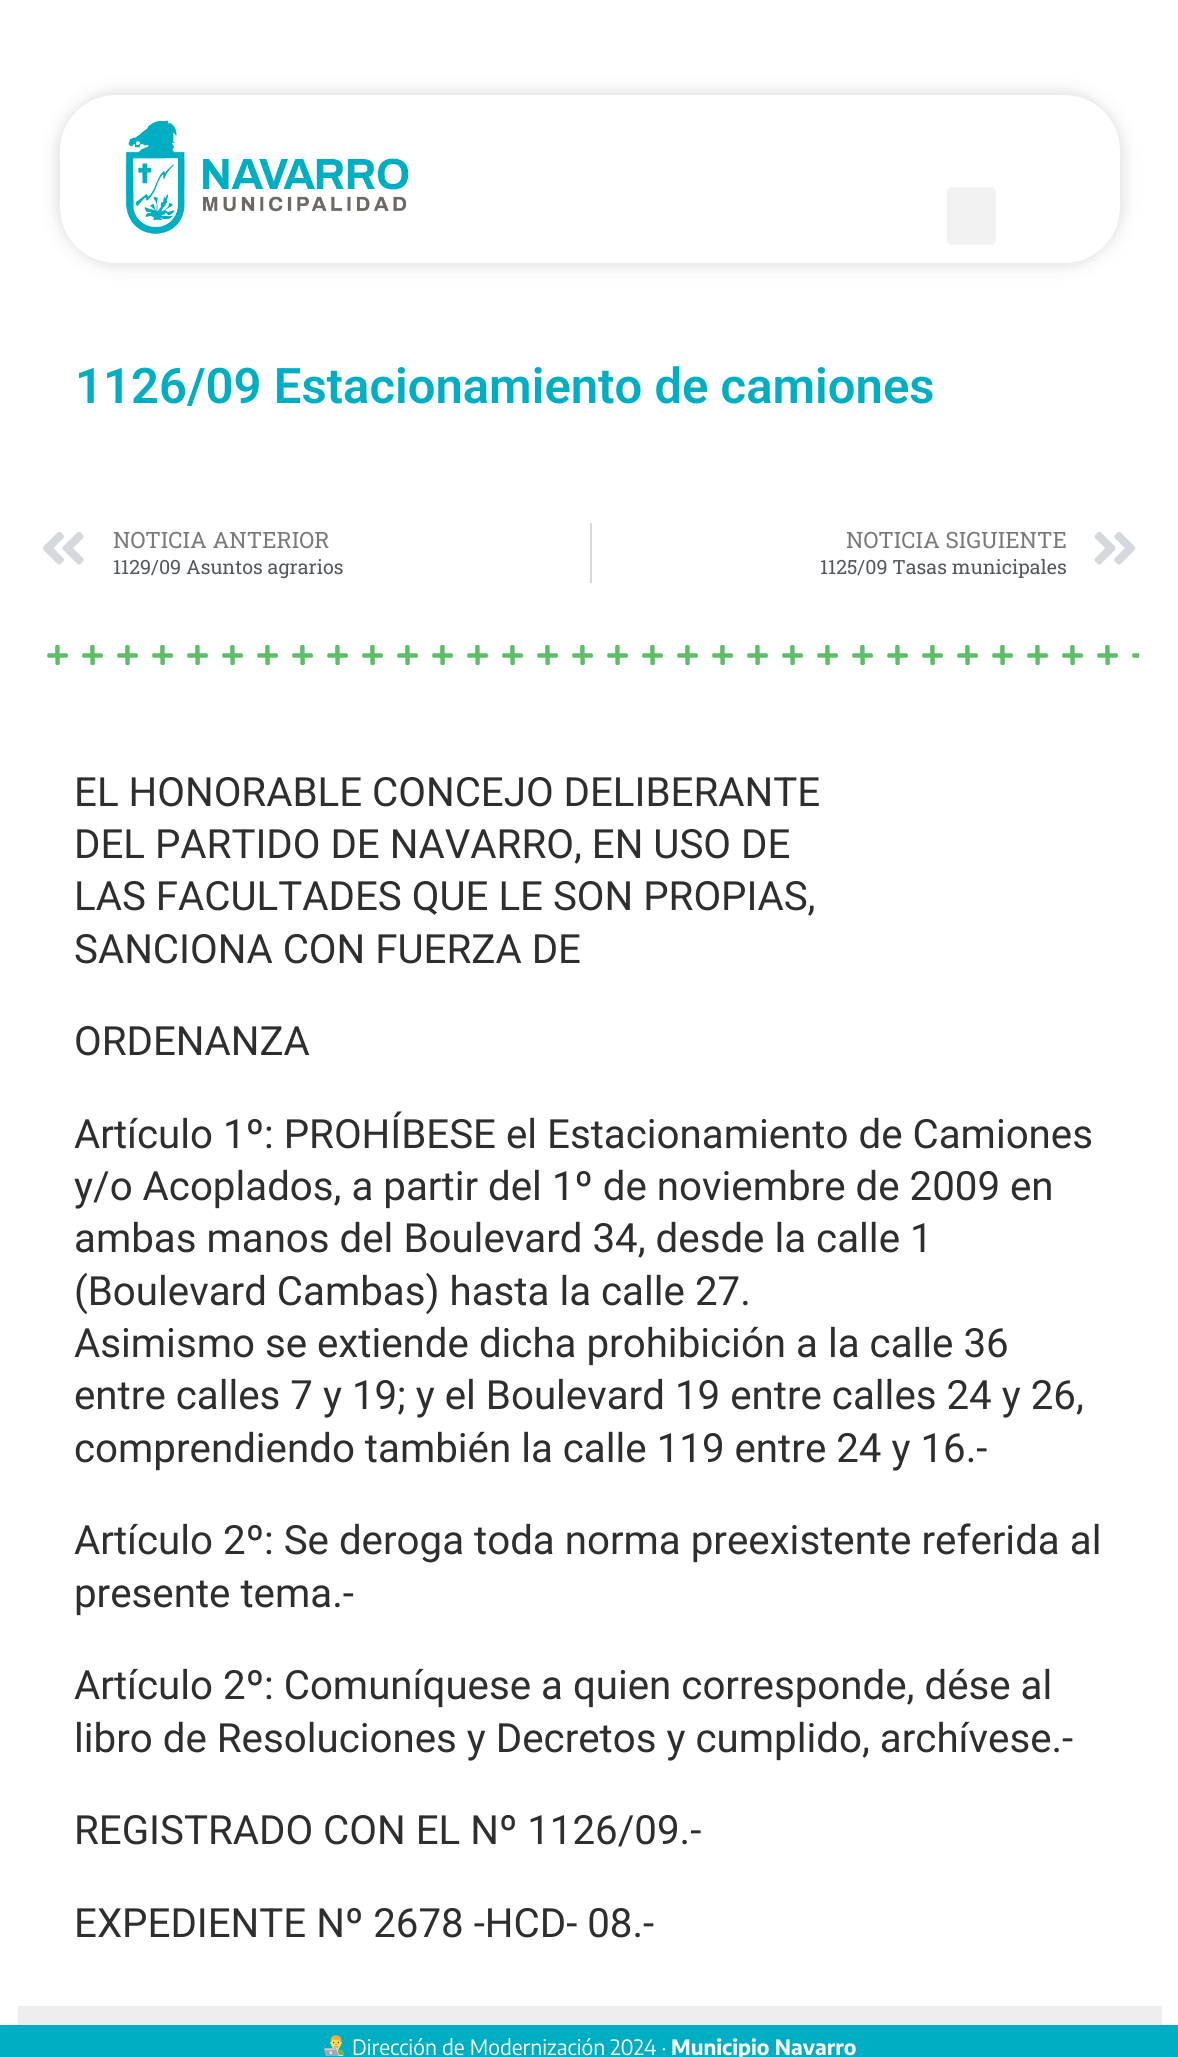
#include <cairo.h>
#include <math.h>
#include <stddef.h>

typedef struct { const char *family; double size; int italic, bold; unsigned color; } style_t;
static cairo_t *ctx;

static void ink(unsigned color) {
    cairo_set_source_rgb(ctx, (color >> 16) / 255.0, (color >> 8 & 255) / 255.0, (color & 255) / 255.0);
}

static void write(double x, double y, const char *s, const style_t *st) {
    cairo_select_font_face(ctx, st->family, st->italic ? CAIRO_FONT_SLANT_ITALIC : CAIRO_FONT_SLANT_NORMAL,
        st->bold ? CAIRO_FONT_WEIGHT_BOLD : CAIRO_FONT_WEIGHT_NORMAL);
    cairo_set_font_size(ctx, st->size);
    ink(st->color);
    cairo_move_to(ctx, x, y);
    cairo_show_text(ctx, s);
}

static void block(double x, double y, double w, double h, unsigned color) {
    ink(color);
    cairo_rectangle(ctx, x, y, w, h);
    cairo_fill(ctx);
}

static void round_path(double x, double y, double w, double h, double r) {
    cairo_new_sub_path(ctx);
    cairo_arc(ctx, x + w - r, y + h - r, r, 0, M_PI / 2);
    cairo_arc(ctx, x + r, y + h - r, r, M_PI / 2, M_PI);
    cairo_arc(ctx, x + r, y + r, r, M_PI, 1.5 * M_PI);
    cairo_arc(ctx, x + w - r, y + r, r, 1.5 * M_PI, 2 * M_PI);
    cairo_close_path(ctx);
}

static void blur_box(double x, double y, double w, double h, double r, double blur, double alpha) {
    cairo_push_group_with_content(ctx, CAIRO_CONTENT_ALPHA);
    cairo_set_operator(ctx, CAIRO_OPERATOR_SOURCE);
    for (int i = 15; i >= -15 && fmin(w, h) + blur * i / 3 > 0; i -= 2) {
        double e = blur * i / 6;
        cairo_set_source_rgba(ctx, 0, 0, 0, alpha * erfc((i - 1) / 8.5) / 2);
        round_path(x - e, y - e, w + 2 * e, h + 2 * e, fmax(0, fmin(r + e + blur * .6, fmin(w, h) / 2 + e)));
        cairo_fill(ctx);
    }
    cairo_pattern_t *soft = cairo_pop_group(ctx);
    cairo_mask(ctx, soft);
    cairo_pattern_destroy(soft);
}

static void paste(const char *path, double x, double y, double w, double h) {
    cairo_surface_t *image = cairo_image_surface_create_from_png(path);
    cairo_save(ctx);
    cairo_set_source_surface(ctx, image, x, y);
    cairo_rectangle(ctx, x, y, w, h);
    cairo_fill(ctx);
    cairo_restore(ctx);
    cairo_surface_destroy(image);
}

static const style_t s1 = {"Roboto SemiBold", 49, 0, 0, 0x00aec3};
static const style_t s2 = {"Roboto Slab", 22.5, 0, 0, 0x7a7a7a};
static const style_t s3 = {"Roboto Slab", 19.6, 0, 0, 0x54595f};
static const style_t s4 = {"Roboto", 40.25, 0, 0, 0x2e2e2e};
static const style_t s5 = {"Encode Sans Condensed", 21, 0, 0, 0xffffff};
static const style_t s6 = {"Encode Sans Condensed", 21, 0, 1, 0xffffff};

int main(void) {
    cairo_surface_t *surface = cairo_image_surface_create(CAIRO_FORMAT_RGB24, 1178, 2057);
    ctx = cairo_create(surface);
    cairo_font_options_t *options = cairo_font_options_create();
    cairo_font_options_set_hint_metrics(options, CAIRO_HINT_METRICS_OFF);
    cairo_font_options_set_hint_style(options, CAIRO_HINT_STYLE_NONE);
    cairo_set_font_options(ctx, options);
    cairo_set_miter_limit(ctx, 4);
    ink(0xffffff);
    cairo_paint(ctx);
    ink(0x000000);
    blur_box(60, 95, 1060, 168, 56, 9, 0.17);
    ink(0xffffff);
    round_path(60, 95, 1060, 168, 56);
    cairo_fill(ctx);
    paste("pic1.png", 125, 120, 284, 114);
    ink(0xf2f2f2);
    round_path(947, 187, 49, 58, 5);
    cairo_fill(ctx);
    write(75, 403, "1126/09 Estacionamiento de camiones", &s1);
    paste("pic2.png", 42, 531, 42, 34);
    write(113, 548, "NOTICIA ANTERIOR", &s2);
    write(113, 574, "1129/09 Asuntos agrarios", &s3);
    block(590, 523, 2, 60, 0xd5d8dc);
    write(846, 548, "NOTICIA SIGUIENTE", &s2);
    write(820, 574, "1125/09 Tasas municipales", &s3);
    paste("pic3.png", 1094, 531, 42, 34);
    paste("pic4.png", 47, 645, 1092, 20);
    write(74, 806, "EL HONORABLE CONCEJO DELIBERANTE", &s4);
    write(74, 858, "DEL PARTIDO DE NAVARRO, EN USO DE", &s4);
    write(74, 910, "LAS FACULTADES QUE LE SON PROPIAS,", &s4);
    write(74, 963, "SANCIONA CON FUERZA DE", &s4);
    write(74, 1055, "ORDENANZA", &s4);
    write(74, 1148, "Artículo 1º: PROHÍBESE el Estacionamiento de Camiones", &s4);
    write(74, 1200, "y/o Acoplados, a partir del 1º de noviembre de 2009 en", &s4);
    write(74, 1252, "ambas manos del Boulevard 34, desde la calle 1", &s4);
    write(74, 1305, "(Boulevard Cambas) hasta la calle 27.", &s4);
    write(74, 1357, "Asimismo se extiende dicha prohibición a la calle 36", &s4);
    write(74, 1409, "entre calles 7 y 19; y el Boulevard 19 entre calles 24 y 26,", &s4);
    write(74, 1462, "comprendiendo también la calle 119 entre 24 y 16.-", &s4);
    write(74, 1554, "Artículo 2º: Se deroga toda norma preexistente referida al", &s4);
    write(74, 1607, "presente tema.-", &s4);
    write(74, 1699, "Artículo 2º: Comuníquese a quien corresponde, dése al", &s4);
    write(74, 1752, "libro de Resoluciones y Decretos y cumplido, archívese.-", &s4);
    write(74, 1844, "REGISTRADO CON EL Nº 1126/09.-", &s4);
    write(74, 1937, "EXPEDIENTE Nº 2678 -HCD- 08.-", &s4);
    block(18, 2006, 1144, 19, 0xeeeeee);
    block(0, 2025, 1178, 32, 0x00aec3);
    paste("pic5.png", 324, 2035, 21, 21);
    write(352, 2055, "Dirección de Modernización 2024 ·", &s5);
    write(671, 2055, "Municipio Navarro", &s6);
    cairo_surface_write_to_png(surface, "screenshot.png");
    cairo_font_options_destroy(options);
    cairo_destroy(ctx);
    cairo_surface_destroy(surface);
    return 0;
}
